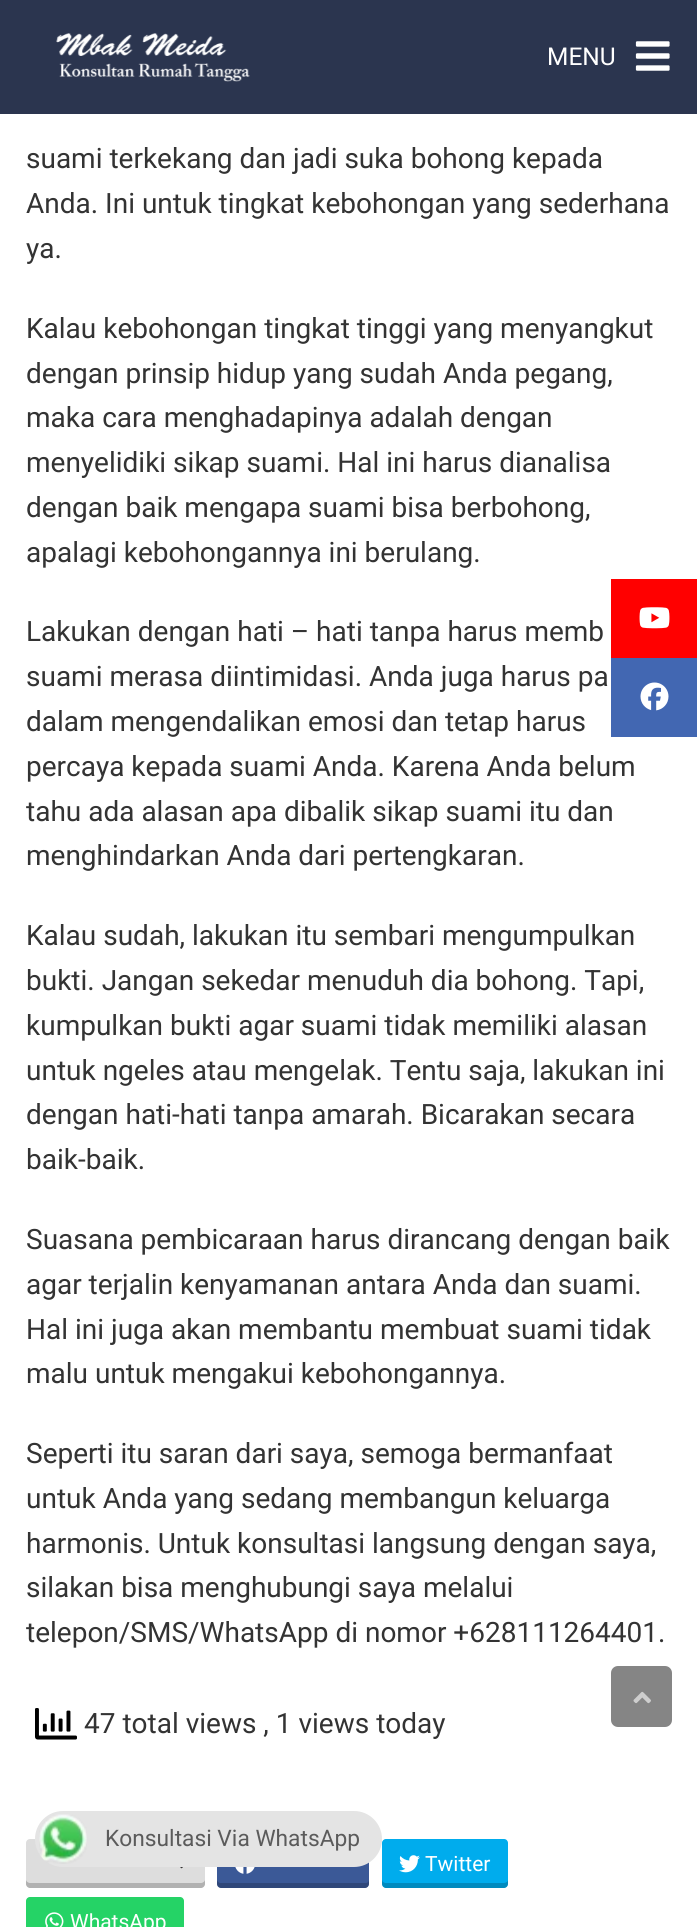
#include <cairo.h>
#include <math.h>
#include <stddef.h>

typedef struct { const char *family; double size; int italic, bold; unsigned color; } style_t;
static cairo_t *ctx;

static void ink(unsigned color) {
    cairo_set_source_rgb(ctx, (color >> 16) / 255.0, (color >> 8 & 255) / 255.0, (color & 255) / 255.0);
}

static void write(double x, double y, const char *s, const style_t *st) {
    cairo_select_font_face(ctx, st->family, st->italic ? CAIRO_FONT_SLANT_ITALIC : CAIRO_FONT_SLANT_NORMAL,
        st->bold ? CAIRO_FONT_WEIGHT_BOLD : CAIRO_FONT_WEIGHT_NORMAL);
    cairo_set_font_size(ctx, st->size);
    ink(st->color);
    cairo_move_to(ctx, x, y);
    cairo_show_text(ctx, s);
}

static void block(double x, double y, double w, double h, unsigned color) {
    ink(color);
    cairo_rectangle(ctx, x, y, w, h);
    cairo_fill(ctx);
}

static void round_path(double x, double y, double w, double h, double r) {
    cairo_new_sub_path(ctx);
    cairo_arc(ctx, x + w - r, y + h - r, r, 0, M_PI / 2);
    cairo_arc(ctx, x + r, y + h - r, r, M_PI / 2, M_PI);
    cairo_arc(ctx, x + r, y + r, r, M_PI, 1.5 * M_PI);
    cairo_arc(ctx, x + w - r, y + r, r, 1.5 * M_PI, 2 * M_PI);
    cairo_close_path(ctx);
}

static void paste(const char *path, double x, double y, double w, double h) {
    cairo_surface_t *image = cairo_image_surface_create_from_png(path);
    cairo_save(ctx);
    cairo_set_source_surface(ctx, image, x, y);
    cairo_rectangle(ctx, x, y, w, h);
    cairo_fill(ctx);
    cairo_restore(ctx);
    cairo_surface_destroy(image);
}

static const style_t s1 = {"Roboto", 24.5, 0, 0, 0xffffff};
static const style_t s2 = {"Roboto", 28, 0, 0, 0x333333};
static const style_t s3 = {"Roboto", 21, 0, 0, 0xffffff};
static const style_t s4 = {"Roboto", 22.75, 0, 0, 0x5b5b5b};

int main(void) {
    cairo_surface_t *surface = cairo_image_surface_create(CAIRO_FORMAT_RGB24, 697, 1927);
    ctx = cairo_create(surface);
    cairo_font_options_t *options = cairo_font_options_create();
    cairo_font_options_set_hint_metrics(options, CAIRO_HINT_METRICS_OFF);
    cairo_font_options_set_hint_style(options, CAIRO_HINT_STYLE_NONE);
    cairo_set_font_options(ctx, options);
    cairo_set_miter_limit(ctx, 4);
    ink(0xffffff);
    cairo_paint(ctx);
    block(0, 0, 697, 114, 0x2b354f);
    paste("pic1.png", 56, 33, 194, 49);
    write(547, 65, "MENU", &s1);
    paste("pic2.png", 635, 41, 35, 30);
    write(26, 168, "suami terkekang dan jadi suka bohong kepada", &s2);
    write(26, 213, "Anda. Ini untuk tingkat kebohongan yang sederhana", &s2);
    write(26, 258, "ya.", &s2);
    write(26, 338, "Kalau kebohongan tingkat tinggi yang menyangkut", &s2);
    write(26, 383, "dengan prinsip hidup yang sudah Anda pegang,", &s2);
    write(26, 427, "maka cara menghadapinya adalah dengan", &s2);
    write(26, 472, "menyelidiki sikap suami. Hal ini harus dianalisa", &s2);
    write(26, 517, "dengan baik mengapa suami bisa berbohong,", &s2);
    write(26, 562, "apalagi kebohongannya ini berulang.", &s2);
    write(26, 641, "Lakukan dengan hati – hati tanpa harus memb", &s2);
    write(26, 686, "suami merasa diintimidasi. Anda juga harus pa", &s2);
    write(26, 731, "dalam mengendalikan emosi dan tetap harus", &s2);
    write(26, 776, "percaya kepada suami Anda. Karena Anda belum", &s2);
    write(26, 821, "tahu ada alasan apa dibalik sikap suami itu dan", &s2);
    write(26, 865, "menghindarkan Anda dari pertengkaran.", &s2);
    write(26, 945, "Kalau sudah, lakukan itu sembari mengumpulkan", &s2);
    write(26, 990, "bukti. Jangan sekedar menuduh dia bohong. Tapi,", &s2);
    write(26, 1035, "kumpulkan bukti agar suami tidak memiliki alasan", &s2);
    write(26, 1080, "untuk ngeles atau mengelak. Tentu saja, lakukan ini", &s2);
    write(26, 1124, "dengan hati-hati tanpa amarah. Bicarakan secara", &s2);
    write(26, 1169, "baik-baik.", &s2);
    write(26, 1249, "Suasana pembicaraan harus dirancang dengan baik", &s2);
    write(26, 1294, "agar terjalin kenyamanan antara Anda dan suami.", &s2);
    write(26, 1339, "Hal ini juga akan membantu membuat suami tidak", &s2);
    write(26, 1383, "malu untuk mengakui kebohongannya.", &s2);
    write(26, 1463, "Seperti itu saran dari saya, semoga bermanfaat", &s2);
    write(26, 1508, "untuk Anda yang sedang membangun keluarga", &s2);
    write(26, 1553, "harmonis. Untuk konsultasi langsung dengan saya,", &s2);
    write(26, 1597, "silakan bisa menghubungi saya melalui", &s2);
    write(26, 1642, "telepon/SMS/WhatsApp di nomor +628111264401.", &s2);
    paste("pic3.png", 35, 1708, 42, 32);
    write(84, 1733, "47 total views , 1 views today", &s2);
    ink(0xdddddd);
    round_path(26, 1839, 179, 49, 4);
    cairo_fill(ctx);
    cairo_set_source_rgba(ctx, 0, 0, 0, 0.2);
    cairo_new_path(ctx);
    cairo_move_to(ctx, 26, 1880);
    cairo_line_to(ctx, 26, 1884);
    cairo_curve_to(ctx, 26, 1886, 28, 1888, 30, 1888);
    cairo_line_to(ctx, 201, 1888);
    cairo_curve_to(ctx, 203, 1888, 205, 1886, 205, 1884);
    cairo_line_to(ctx, 205, 1880);
    cairo_curve_to(ctx, 205, 1881, 203, 1883, 201, 1883);
    cairo_line_to(ctx, 30, 1883);
    cairo_curve_to(ctx, 28, 1883, 26, 1881, 26, 1880);
    cairo_close_path(ctx);
    cairo_fill(ctx);
    paste("pic4.png", 180, 1867, 3, 2);
    ink(0x3b5997);
    round_path(217, 1839, 152, 49, 4);
    cairo_fill(ctx);
    cairo_set_source_rgba(ctx, 0, 0, 0, 0.2);
    cairo_new_path(ctx);
    cairo_move_to(ctx, 217, 1880);
    cairo_line_to(ctx, 217, 1884);
    cairo_curve_to(ctx, 217, 1886, 219, 1888, 221, 1888);
    cairo_line_to(ctx, 365, 1888);
    cairo_curve_to(ctx, 367, 1888, 369, 1886, 369, 1884);
    cairo_line_to(ctx, 369, 1880);
    cairo_curve_to(ctx, 369, 1881, 368, 1883, 366, 1883);
    cairo_line_to(ctx, 220, 1883);
    cairo_curve_to(ctx, 219, 1883, 217, 1881, 217, 1880);
    cairo_close_path(ctx);
    cairo_fill(ctx);
    paste("pic5.png", 235, 1867, 20, 7);
    ink(0x00aced);
    round_path(382, 1839, 126, 49, 4);
    cairo_fill(ctx);
    cairo_set_source_rgba(ctx, 0, 0, 0, 0.2);
    cairo_new_path(ctx);
    cairo_move_to(ctx, 382, 1880);
    cairo_line_to(ctx, 382, 1884);
    cairo_curve_to(ctx, 382, 1886, 384, 1888, 386, 1888);
    cairo_line_to(ctx, 504, 1888);
    cairo_curve_to(ctx, 506, 1888, 508, 1886, 508, 1884);
    cairo_line_to(ctx, 508, 1880);
    cairo_curve_to(ctx, 508, 1882, 505, 1883, 504, 1883);
    cairo_line_to(ctx, 385, 1883);
    cairo_line_to(ctx, 383, 1882);
    cairo_close_path(ctx);
    cairo_fill(ctx);
    paste("pic6.png", 399, 1855, 21, 18);
    write(425, 1871, "Twitter", &s3);
    ink(0x25d366);
    round_path(26, 1897, 158, 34, 4);
    cairo_fill(ctx);
    paste("pic7.png", 45, 1912, 19, 15);
    write(70, 1929, "WhatsApp", &s3);
    block(611, 579, 86, 79, 0xff0000);
    paste("pic8.png", 639, 607, 31, 22);
    block(611, 658, 86, 79, 0x4267b2);
    paste("pic9.png", 640, 682, 29, 29);
    ink(0x858585);
    round_path(611, 1666, 61, 61, 7);
    cairo_fill(ctx);
    paste("pic10.png", 633, 1691, 18, 13);
    ink(0xe4e4e4);
    round_path(35, 1811, 347, 56, 28);
    cairo_fill(ctx);
    paste("pic11.png", 39, 1814, 48, 50);
    write(105, 1846, "Konsultasi Via WhatsApp", &s4);
    cairo_surface_write_to_png(surface, "screenshot.png");
    cairo_font_options_destroy(options);
    cairo_destroy(ctx);
    cairo_surface_destroy(surface);
    return 0;
}
